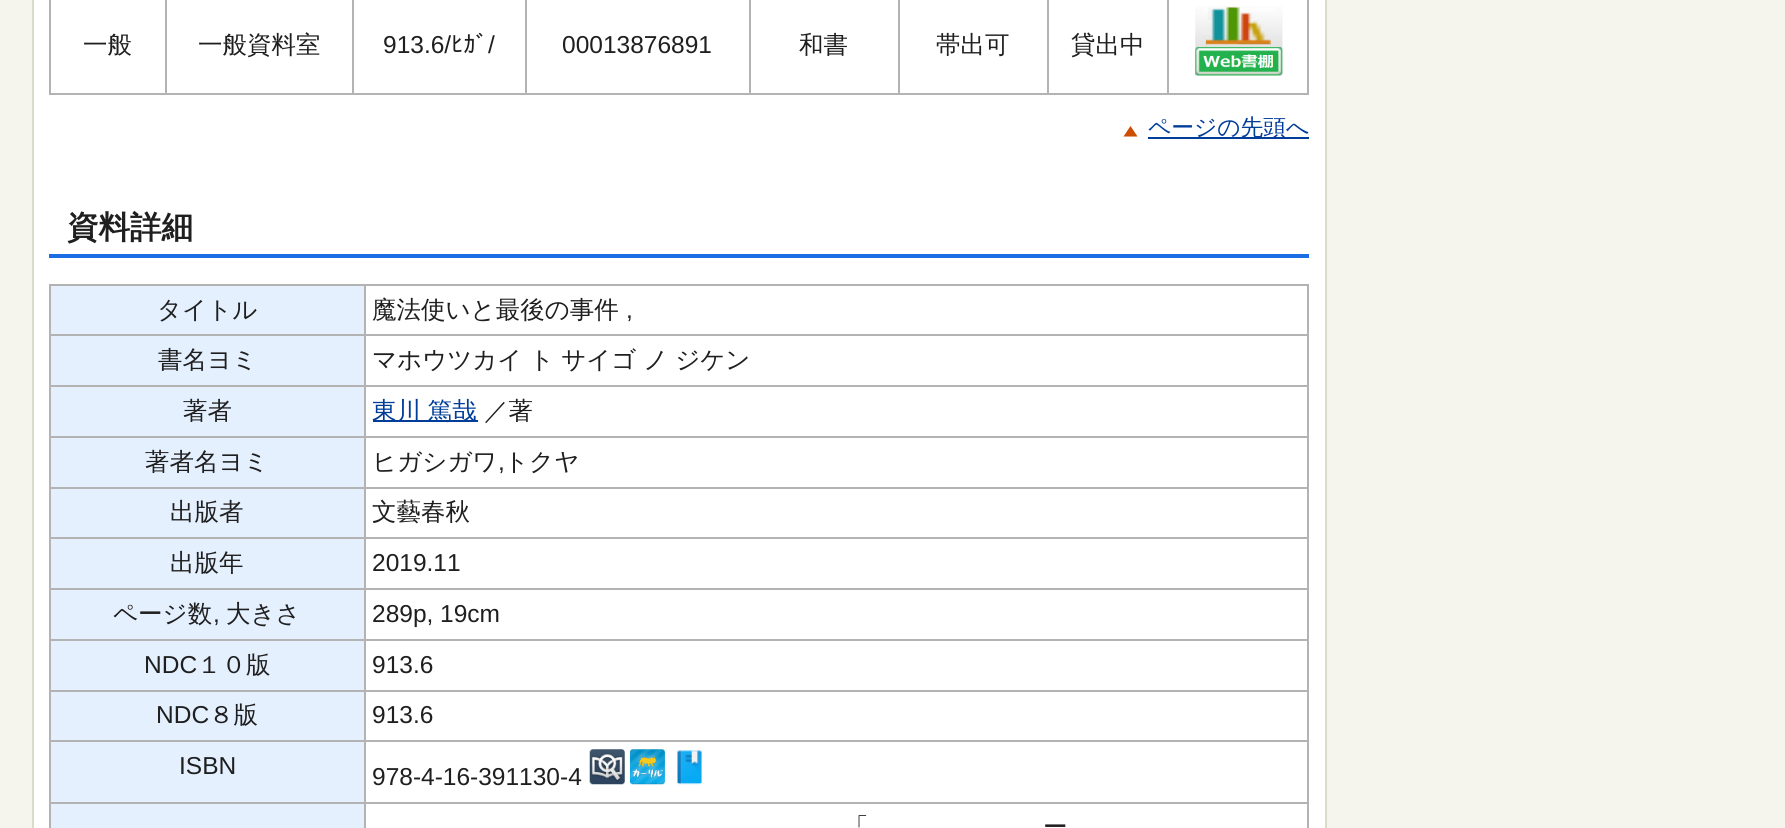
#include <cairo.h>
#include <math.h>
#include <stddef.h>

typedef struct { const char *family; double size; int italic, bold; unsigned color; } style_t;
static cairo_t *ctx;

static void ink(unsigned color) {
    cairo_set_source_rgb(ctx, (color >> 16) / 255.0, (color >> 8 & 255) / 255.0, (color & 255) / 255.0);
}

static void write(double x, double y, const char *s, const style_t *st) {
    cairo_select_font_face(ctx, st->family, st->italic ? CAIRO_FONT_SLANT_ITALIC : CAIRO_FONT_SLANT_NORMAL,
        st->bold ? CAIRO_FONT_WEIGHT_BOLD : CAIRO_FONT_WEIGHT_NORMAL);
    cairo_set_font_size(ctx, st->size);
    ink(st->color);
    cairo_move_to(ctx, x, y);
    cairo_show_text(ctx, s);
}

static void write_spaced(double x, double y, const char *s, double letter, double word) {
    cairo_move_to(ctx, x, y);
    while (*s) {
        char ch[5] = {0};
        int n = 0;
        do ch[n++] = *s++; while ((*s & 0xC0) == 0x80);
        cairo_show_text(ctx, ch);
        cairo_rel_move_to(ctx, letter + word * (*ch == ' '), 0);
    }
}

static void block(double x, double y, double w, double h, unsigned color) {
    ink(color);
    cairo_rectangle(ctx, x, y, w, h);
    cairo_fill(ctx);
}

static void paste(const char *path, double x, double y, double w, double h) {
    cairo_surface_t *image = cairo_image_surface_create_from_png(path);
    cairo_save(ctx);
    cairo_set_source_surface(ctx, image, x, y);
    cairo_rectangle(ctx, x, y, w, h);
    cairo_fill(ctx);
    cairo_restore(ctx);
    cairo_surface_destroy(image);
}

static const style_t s1 = {"WenQuanYi Zen Hei Medium", 24.5, 0, 0, 0x1f1f1f};
static const style_t s2 = {"Liberation Sans", 24.5, 0, 0, 0x1f1f1f};
static const style_t s3 = {"IPAPGothic", 24.5, 0, 0, 0x1f1f1f};
static const style_t s4 = {"WenQuanYi Zen Hei Medium", 22.75, 0, 0, 0x003d99};
static const style_t s5 = {"WenQuanYi Zen Hei", 31.5, 0, 1, 0x1f1f1f};

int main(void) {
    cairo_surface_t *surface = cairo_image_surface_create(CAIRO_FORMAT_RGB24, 1785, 828);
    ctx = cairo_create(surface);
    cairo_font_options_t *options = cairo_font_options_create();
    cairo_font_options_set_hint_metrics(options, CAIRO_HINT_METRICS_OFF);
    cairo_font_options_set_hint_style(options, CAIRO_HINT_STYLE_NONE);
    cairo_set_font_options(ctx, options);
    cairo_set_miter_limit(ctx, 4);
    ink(0xf5f4ed);
    cairo_paint(ctx);
    ink(0xffffff);
    cairo_rectangle(ctx, 33, -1, 1293, 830);
    cairo_fill_preserve(ctx);
    ink(0xdbdacb);
    cairo_stroke(ctx);
    block(1307, 0, 2, 95, 0xb3b3b3);
    block(49, 93, 1260, 2, 0xb3b3b3);
    block(49, 0, 2, 95, 0xb3b3b3);
    write(83, 53, "一般", &s1);
    block(165, 0, 2, 95, 0xb3b3b3);
    write(198, 53, "一般資料室", &s1);
    block(352, 0, 2, 95, 0xb3b3b3);
    write(383, 53, "913.6/", &s2);
    write(451, 53, "ﾋｶﾞ", &s3);
    write(488, 53, "/", &s2);
    block(525, 0, 2, 95, 0xb3b3b3);
    write(562, 53, "00013876891", &s2);
    block(749, 0, 2, 95, 0xb3b3b3);
    write(799, 53, "和書", &s1);
    block(898, 0, 2, 95, 0xb3b3b3);
    write(936, 53, "帯出可", &s1);
    block(1047, 0, 2, 95, 0xb3b3b3);
    write(1071, 53, "貸出中", &s1);
    block(1167, 0, 2, 95, 0xb3b3b3);
    paste("pic1.png", 1195, 6, 88, 70);
    ink(0xcc4e00);
    cairo_new_path(ctx);
    cairo_move_to(ctx, 1137.5, 136.5);
    cairo_line_to(ctx, 1123.5, 136.5);
    cairo_line_to(ctx, 1130.5, 126);
    cairo_close_path(ctx);
    cairo_fill(ctx);
    block(1148, 137, 161, 2, 0x003d99);
    write(1148, 135, "ページの先頭へ", &s4);
    block(49, 254, 1260, 4, 0x1a6de6);
    write(67, 238, "資料詳細", &s5);
    block(49, 284, 1260, 2, 0xb3b3b3);
    block(1307, 284, 2, 544, 0xb3b3b3);
    block(49, 284, 2, 544, 0xb3b3b3);
    block(51, 286, 313, 48, 0xe5f0ff);
    write(157, 318, "タイトル", &s1);
    block(364, 334, 945, 2, 0xb3b3b3);
    block(364, 385, 945, 2, 0xb3b3b3);
    block(364, 436, 945, 2, 0xb3b3b3);
    block(364, 487, 945, 2, 0xb3b3b3);
    block(364, 537, 945, 2, 0xb3b3b3);
    block(364, 588, 945, 2, 0xb3b3b3);
    block(364, 639, 945, 2, 0xb3b3b3);
    block(364, 690, 945, 2, 0xb3b3b3);
    block(364, 740, 945, 2, 0xb3b3b3);
    block(364, 802, 945, 2, 0xb3b3b3);
    block(364, 802, 2, 26, 0xb3b3b3);
    block(49, 802, 317, 2, 0xb3b3b3);
    block(364, 740, 2, 63, 0xb3b3b3);
    block(49, 740, 317, 2, 0xb3b3b3);
    block(364, 690, 2, 52, 0xb3b3b3);
    block(49, 690, 317, 2, 0xb3b3b3);
    block(364, 639, 2, 52, 0xb3b3b3);
    block(49, 639, 317, 2, 0xb3b3b3);
    block(364, 588, 2, 53, 0xb3b3b3);
    block(49, 588, 317, 2, 0xb3b3b3);
    block(364, 537, 2, 53, 0xb3b3b3);
    block(49, 537, 317, 2, 0xb3b3b3);
    block(364, 487, 2, 52, 0xb3b3b3);
    block(49, 487, 317, 2, 0xb3b3b3);
    block(364, 436, 2, 52, 0xb3b3b3);
    block(49, 436, 317, 2, 0xb3b3b3);
    block(364, 385, 2, 53, 0xb3b3b3);
    block(49, 385, 317, 2, 0xb3b3b3);
    block(364, 334, 2, 53, 0xb3b3b3);
    block(49, 334, 317, 2, 0xb3b3b3);
    block(364, 284, 2, 52, 0xb3b3b3);
    write(372, 318, "魔法使いと最後の事件", &s1);
    write(626, 318, ",", &s2);
    block(51, 336, 313, 49, 0xe5f0ff);
    write(158, 368, "書名ヨミ", &s1);
    write_spaced(372, 368, "マホウツカイ ト サイゴ ノ ジケン", 0, -0.5);
    block(51, 387, 313, 49, 0xe5f0ff);
    write(183, 419, "著者", &s1);
    block(373, 420, 105, 2, 0x003d99);
    write_spaced(372, 419, "東川 篤哉", 0, -0.5);
    write(484, 419, "／著", &s1);
    block(51, 438, 313, 49, 0xe5f0ff);
    write(145, 470, "著者名ヨミ", &s1);
    write(372, 470, "ヒガシガワ", &s1);
    write(498, 470, ",", &s2);
    write(504, 470, "トクヤ", &s1);
    block(51, 489, 313, 48, 0xe5f0ff);
    write(170, 520, "出版者", &s1);
    write(372, 520, "文藝春秋", &s1);
    block(51, 539, 313, 49, 0xe5f0ff);
    write(170, 571, "出版年", &s1);
    write(372, 571, "2019.11", &s2);
    block(51, 590, 313, 49, 0xe5f0ff);
    write(113, 622, "ページ数", &s1);
    write(213, 622, ",", &s2);
    write(226, 622, "大きさ", &s1);
    write(372, 622, "289p, 19cm", &s2);
    block(51, 641, 313, 49, 0xe5f0ff);
    write(144, 673, "NDC", &s2);
    write(197, 673, "１０版", &s1);
    write(372, 673, "913.6", &s2);
    block(51, 692, 313, 48, 0xe5f0ff);
    write(156, 723, "NDC", &s2);
    write(209, 723, "８版", &s1);
    write(372, 723, "913.6", &s2);
    block(51, 742, 313, 60, 0xe5f0ff);
    write(179, 774, "ISBN", &s2);
    write(372, 785, "978-4-16-391130-4", &s2);
    paste("pic2.png", 589, 749, 36, 36);
    paste("pic3.png", 630, 749, 35, 36);
    paste("pic4.png", 677, 750, 25, 35);
    block(51, 804, 313, 24, 0xe5f0ff);
    write(844, 835, "「", &s1);
    write(1043, 835, "ー", &s1);
    cairo_surface_write_to_png(surface, "screenshot.png");
    cairo_font_options_destroy(options);
    cairo_destroy(ctx);
    cairo_surface_destroy(surface);
    return 0;
}
